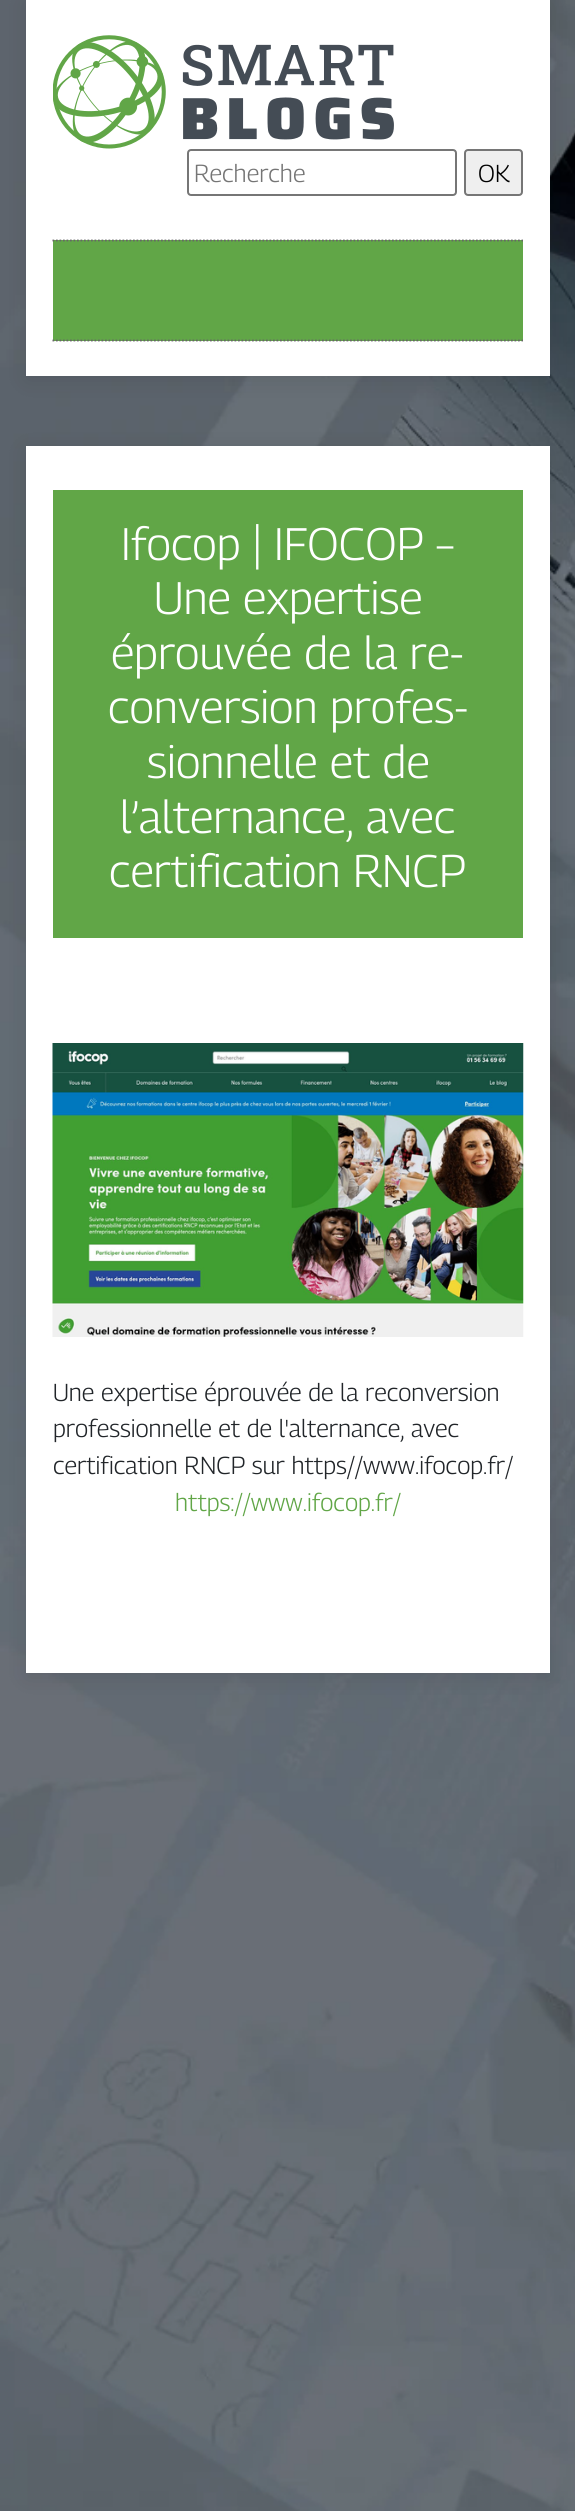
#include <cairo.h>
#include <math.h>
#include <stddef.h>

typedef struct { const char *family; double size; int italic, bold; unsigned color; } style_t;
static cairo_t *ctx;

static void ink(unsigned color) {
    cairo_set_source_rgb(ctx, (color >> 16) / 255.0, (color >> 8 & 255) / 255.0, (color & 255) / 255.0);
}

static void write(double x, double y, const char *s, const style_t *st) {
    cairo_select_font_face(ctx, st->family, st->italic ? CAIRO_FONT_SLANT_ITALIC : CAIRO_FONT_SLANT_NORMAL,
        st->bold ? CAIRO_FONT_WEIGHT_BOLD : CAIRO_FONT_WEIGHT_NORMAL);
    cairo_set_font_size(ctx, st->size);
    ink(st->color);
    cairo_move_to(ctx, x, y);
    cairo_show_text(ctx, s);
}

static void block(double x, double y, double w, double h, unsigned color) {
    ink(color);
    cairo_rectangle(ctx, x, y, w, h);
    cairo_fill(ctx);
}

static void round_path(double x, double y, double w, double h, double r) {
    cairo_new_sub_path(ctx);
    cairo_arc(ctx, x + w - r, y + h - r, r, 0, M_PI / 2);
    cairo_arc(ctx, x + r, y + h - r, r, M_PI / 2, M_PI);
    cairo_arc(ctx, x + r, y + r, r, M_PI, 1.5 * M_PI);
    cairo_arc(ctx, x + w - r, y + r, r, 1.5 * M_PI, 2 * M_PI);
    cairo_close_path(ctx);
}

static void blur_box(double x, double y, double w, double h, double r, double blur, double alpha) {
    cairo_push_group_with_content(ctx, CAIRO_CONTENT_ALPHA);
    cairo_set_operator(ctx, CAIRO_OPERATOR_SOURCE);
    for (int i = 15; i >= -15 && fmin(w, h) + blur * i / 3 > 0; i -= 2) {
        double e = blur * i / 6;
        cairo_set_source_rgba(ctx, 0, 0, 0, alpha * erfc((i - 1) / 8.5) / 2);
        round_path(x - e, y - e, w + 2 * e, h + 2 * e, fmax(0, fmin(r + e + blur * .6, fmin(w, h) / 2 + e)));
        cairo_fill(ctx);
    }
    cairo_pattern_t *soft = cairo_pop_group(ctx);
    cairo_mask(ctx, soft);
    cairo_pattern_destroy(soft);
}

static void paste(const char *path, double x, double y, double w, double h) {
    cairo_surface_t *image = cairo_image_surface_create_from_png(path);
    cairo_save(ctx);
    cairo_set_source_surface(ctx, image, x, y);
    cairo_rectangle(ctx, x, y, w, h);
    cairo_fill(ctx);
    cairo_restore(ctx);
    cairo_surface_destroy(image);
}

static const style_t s1 = {"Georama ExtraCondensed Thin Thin", 24.5, 0, 0, 0x757575};
static const style_t s2 = {"Georama ExtraCondensed Thin Thin", 24.5, 0, 0, 0x000000};
static const style_t s3 = {"Georama ExtraCondensed Thin Thin", 45.5, 0, 0, 0xffffff};
static const style_t s4 = {"Georama ExtraCondensed Thin Thin", 24.5, 0, 0, 0x212529};
static const style_t s5 = {"Georama ExtraCondensed Thin Thin", 24.5, 0, 0, 0x61a647};

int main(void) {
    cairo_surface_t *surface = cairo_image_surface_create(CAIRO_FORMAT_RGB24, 575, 2511);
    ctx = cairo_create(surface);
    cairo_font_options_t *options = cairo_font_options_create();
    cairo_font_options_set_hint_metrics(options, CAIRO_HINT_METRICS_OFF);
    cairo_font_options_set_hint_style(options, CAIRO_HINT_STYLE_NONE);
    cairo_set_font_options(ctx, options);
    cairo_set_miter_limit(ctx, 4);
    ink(0xffffff);
    cairo_paint(ctx);
    paste("pic1.png", 0, 0, 575, 2511);
    ink(0x000000);
    blur_box(26, 4, 524, 376, 0, 11.5, 0.1);
    block(26, 0, 524, 376, 0xffffff);
    paste("pic2.png", 53, 35, 341, 114);
    round_path(188, 150, 268, 45, 3);
    ink(0x767676);
    cairo_stroke(ctx);
    write(194, 182, "Recherche", &s1);
    ink(0xefefef);
    round_path(465, 150, 57, 45, 3);
    cairo_fill_preserve(ctx);
    ink(0x767676);
    cairo_stroke(ctx);
    write(478, 182, "OK", &s2);
    block(53, 240, 470, 101, 0x61a647);
    cairo_new_path(ctx);
    cairo_move_to(ctx, 52.5, 240.5);
    cairo_line_to(ctx, 523, 240.5);
    ink(0x666666);
    cairo_set_line_width(ctx, 1.8);
    cairo_set_dash(ctx, (double[]){1.75, 1.75}, 2, 0);
    cairo_stroke(ctx);
    cairo_new_path(ctx);
    cairo_move_to(ctx, 52.5, 340.5);
    cairo_line_to(ctx, 523, 340.5);
    cairo_stroke(ctx);
    ink(0x000000);
    blur_box(26, 450, 524, 1227, 0, 11.5, 0.1);
    block(26, 446, 524, 1227, 0xffffff);
    block(53, 490, 470, 448, 0x61a647);
    write(121, 560, "Ifocop | IFOCOP –", &s3);
    write(154, 614, "Une expertise", &s3);
    write(111, 669, "éprouvée de la re-", &s3);
    write(108, 723, "conversion profes-", &s3);
    write(147, 778, "sionnelle et de", &s3);
    write(120, 833, "l’alternance, avec", &s3);
    write(109, 887, "certification RNCP", &s3);
    paste("pic3.png", 52, 1043, 472, 294);
    write(53, 1401, "Une expertise éprouvée de la reconversion", &s4);
    write(53, 1437, "professionnelle et de l'alternance, avec", &s4);
    write(53, 1474, "certification RNCP sur https//www.ifocop.fr/", &s4);
    write(175, 1511, "https://www.ifocop.fr/", &s5);
    cairo_surface_write_to_png(surface, "screenshot.png");
    cairo_font_options_destroy(options);
    cairo_destroy(ctx);
    cairo_surface_destroy(surface);
    return 0;
}
